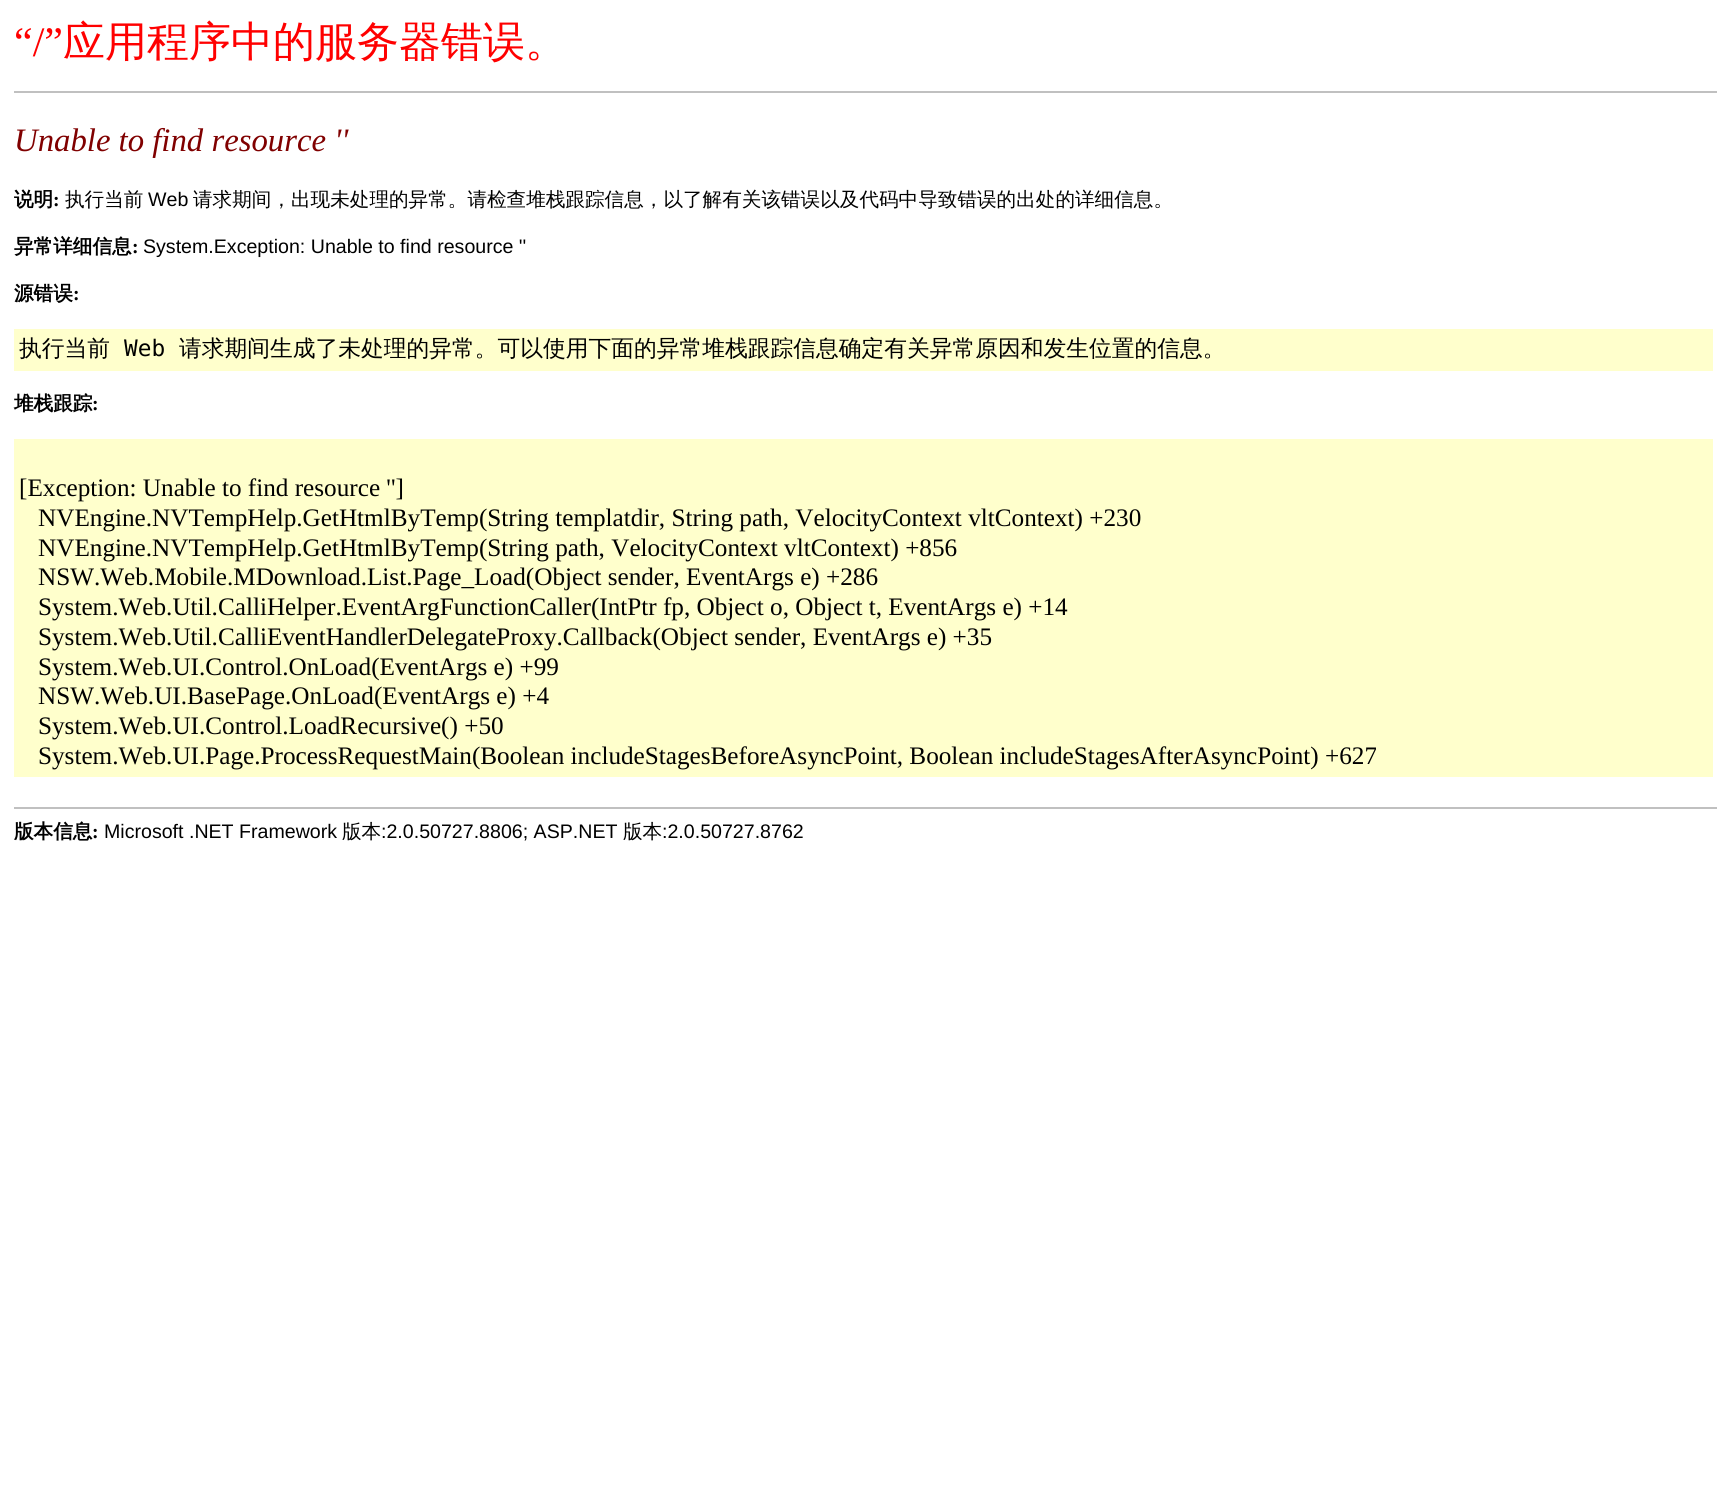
#include <cairo.h>
#include <math.h>
#include <stddef.h>

typedef struct { const char *family; double size; int italic, bold; unsigned color; } style_t;
static cairo_t *ctx;

static void ink(unsigned color) {
    cairo_set_source_rgb(ctx, (color >> 16) / 255.0, (color >> 8 & 255) / 255.0, (color & 255) / 255.0);
}

static void write(double x, double y, const char *s, const style_t *st) {
    cairo_select_font_face(ctx, st->family, st->italic ? CAIRO_FONT_SLANT_ITALIC : CAIRO_FONT_SLANT_NORMAL,
        st->bold ? CAIRO_FONT_WEIGHT_BOLD : CAIRO_FONT_WEIGHT_NORMAL);
    cairo_set_font_size(ctx, st->size);
    ink(st->color);
    cairo_move_to(ctx, x, y);
    cairo_show_text(ctx, s);
}

static void block(double x, double y, double w, double h, unsigned color) {
    ink(color);
    cairo_rectangle(ctx, x, y, w, h);
    cairo_fill(ctx);
}

static const style_t s1 = {"Liberation Serif", 42, 0, 0, 0xff0000};
static const style_t s2 = {"WenQuanYi Zen Hei Medium", 42, 0, 0, 0xff0000};
static const style_t s3 = {"Liberation Serif", 32.75, 1, 0, 0x800000};
static const style_t s4 = {"WenQuanYi Zen Hei", 19.6, 0, 1, 0x000000};
static const style_t s5 = {"Liberation Serif", 19.6, 0, 1, 0x000000};
static const style_t s6 = {"WenQuanYi Zen Hei Medium", 19.6, 0, 0, 0x000000};
static const style_t s7 = {"Liberation Sans", 19.6, 0, 0, 0x000000};
static const style_t s8 = {"WenQuanYi Zen Hei Medium", 22.75, 0, 0, 0x000000};
static const style_t s9 = {"DejaVu Sans Mono", 22.75, 0, 0, 0x000000};
static const style_t s10 = {"Liberation Serif", 25.2, 0, 0, 0x000000};

int main(void) {
    cairo_surface_t *surface = cairo_image_surface_create(CAIRO_FORMAT_RGB24, 1727, 1505);
    ctx = cairo_create(surface);
    cairo_font_options_t *options = cairo_font_options_create();
    cairo_font_options_set_hint_metrics(options, CAIRO_HINT_METRICS_OFF);
    cairo_font_options_set_hint_style(options, CAIRO_HINT_STYLE_NONE);
    cairo_set_font_options(ctx, options);
    cairo_set_miter_limit(ctx, 4);
    ink(0xffffff);
    cairo_paint(ctx);
    write(14, 56, "“/”", &s1);
    write(63, 56, "应用程序中的服务器错误。", &s2);
    block(14, 91, 1703, 2, 0xc0c0c0);
    write(14, 151, "Unable to find resource ''", &s3);
    write(14, 206, "说明", &s4);
    write(53, 206, ":", &s5);
    write(65, 206, "执行当前", &s6);
    write(148, 206, "Web", &s7);
    write(193, 206, "请求期间，出现未处理的异常。请检查堆栈跟踪信息，以了解有关该错误以及代码中导致错误的出处的详细信息。", &s6);
    write(14, 253, "异常详细信息", &s4);
    write(132, 253, ":", &s5);
    write(143, 253, "System.Exception: Unable to find resource ''", &s7);
    write(14, 300, "源错误", &s4);
    write(73, 300, ":", &s5);
    block(14, 329, 1699, 42, 0xffffcc);
    write(19, 356, "执行当前", &s8);
    write(124, 356, "Web", &s9);
    write(179, 356, "请求期间生成了未处理的异常。可以使用下面的异常堆栈跟踪信息确定有关异常原因和发生位置的信息。", &s8);
    write(14, 410, "堆栈跟踪", &s4);
    write(92, 410, ":", &s5);
    block(14, 439, 1699, 338, 0xffffcc);
    write(19, 496, "[Exception: Unable to find resource '']", &s10);
    write(38, 526, "NVEngine.NVTempHelp.GetHtmlByTemp(String templatdir, String path, VelocityContext vltContext) +230", &s10);
    write(38, 556, "NVEngine.NVTempHelp.GetHtmlByTemp(String path, VelocityContext vltContext) +856", &s10);
    write(38, 585, "NSW.Web.Mobile.MDownload.List.Page_Load(Object sender, EventArgs e) +286", &s10);
    write(38, 615, "System.Web.Util.CalliHelper.EventArgFunctionCaller(IntPtr fp, Object o, Object t, EventArgs e) +14", &s10);
    write(38, 645, "System.Web.Util.CalliEventHandlerDelegateProxy.Callback(Object sender, EventArgs e) +35", &s10);
    write(38, 675, "System.Web.UI.Control.OnLoad(EventArgs e) +99", &s10);
    write(38, 704, "NSW.Web.UI.BasePage.OnLoad(EventArgs e) +4", &s10);
    write(38, 734, "System.Web.UI.Control.LoadRecursive() +50", &s10);
    write(38, 764, "System.Web.UI.Page.ProcessRequestMain(Boolean includeStagesBeforeAsyncPoint, Boolean includeStagesAfterAsyncPoint) +627", &s10);
    block(14, 807, 1703, 2, 0xc0c0c0);
    write(14, 838, "版本信息", &s4);
    write(92, 838, ":", &s5);
    write(104, 838, "Microsoft .NET Framework", &s7);
    write(342, 838, "版本", &s6);
    write(381, 838, ":2.0.50727.8806; ASP.NET", &s7);
    write(623, 838, "版本", &s6);
    write(662, 838, ":2.0.50727.8762", &s7);
    cairo_surface_write_to_png(surface, "screenshot.png");
    cairo_font_options_destroy(options);
    cairo_destroy(ctx);
    cairo_surface_destroy(surface);
    return 0;
}
